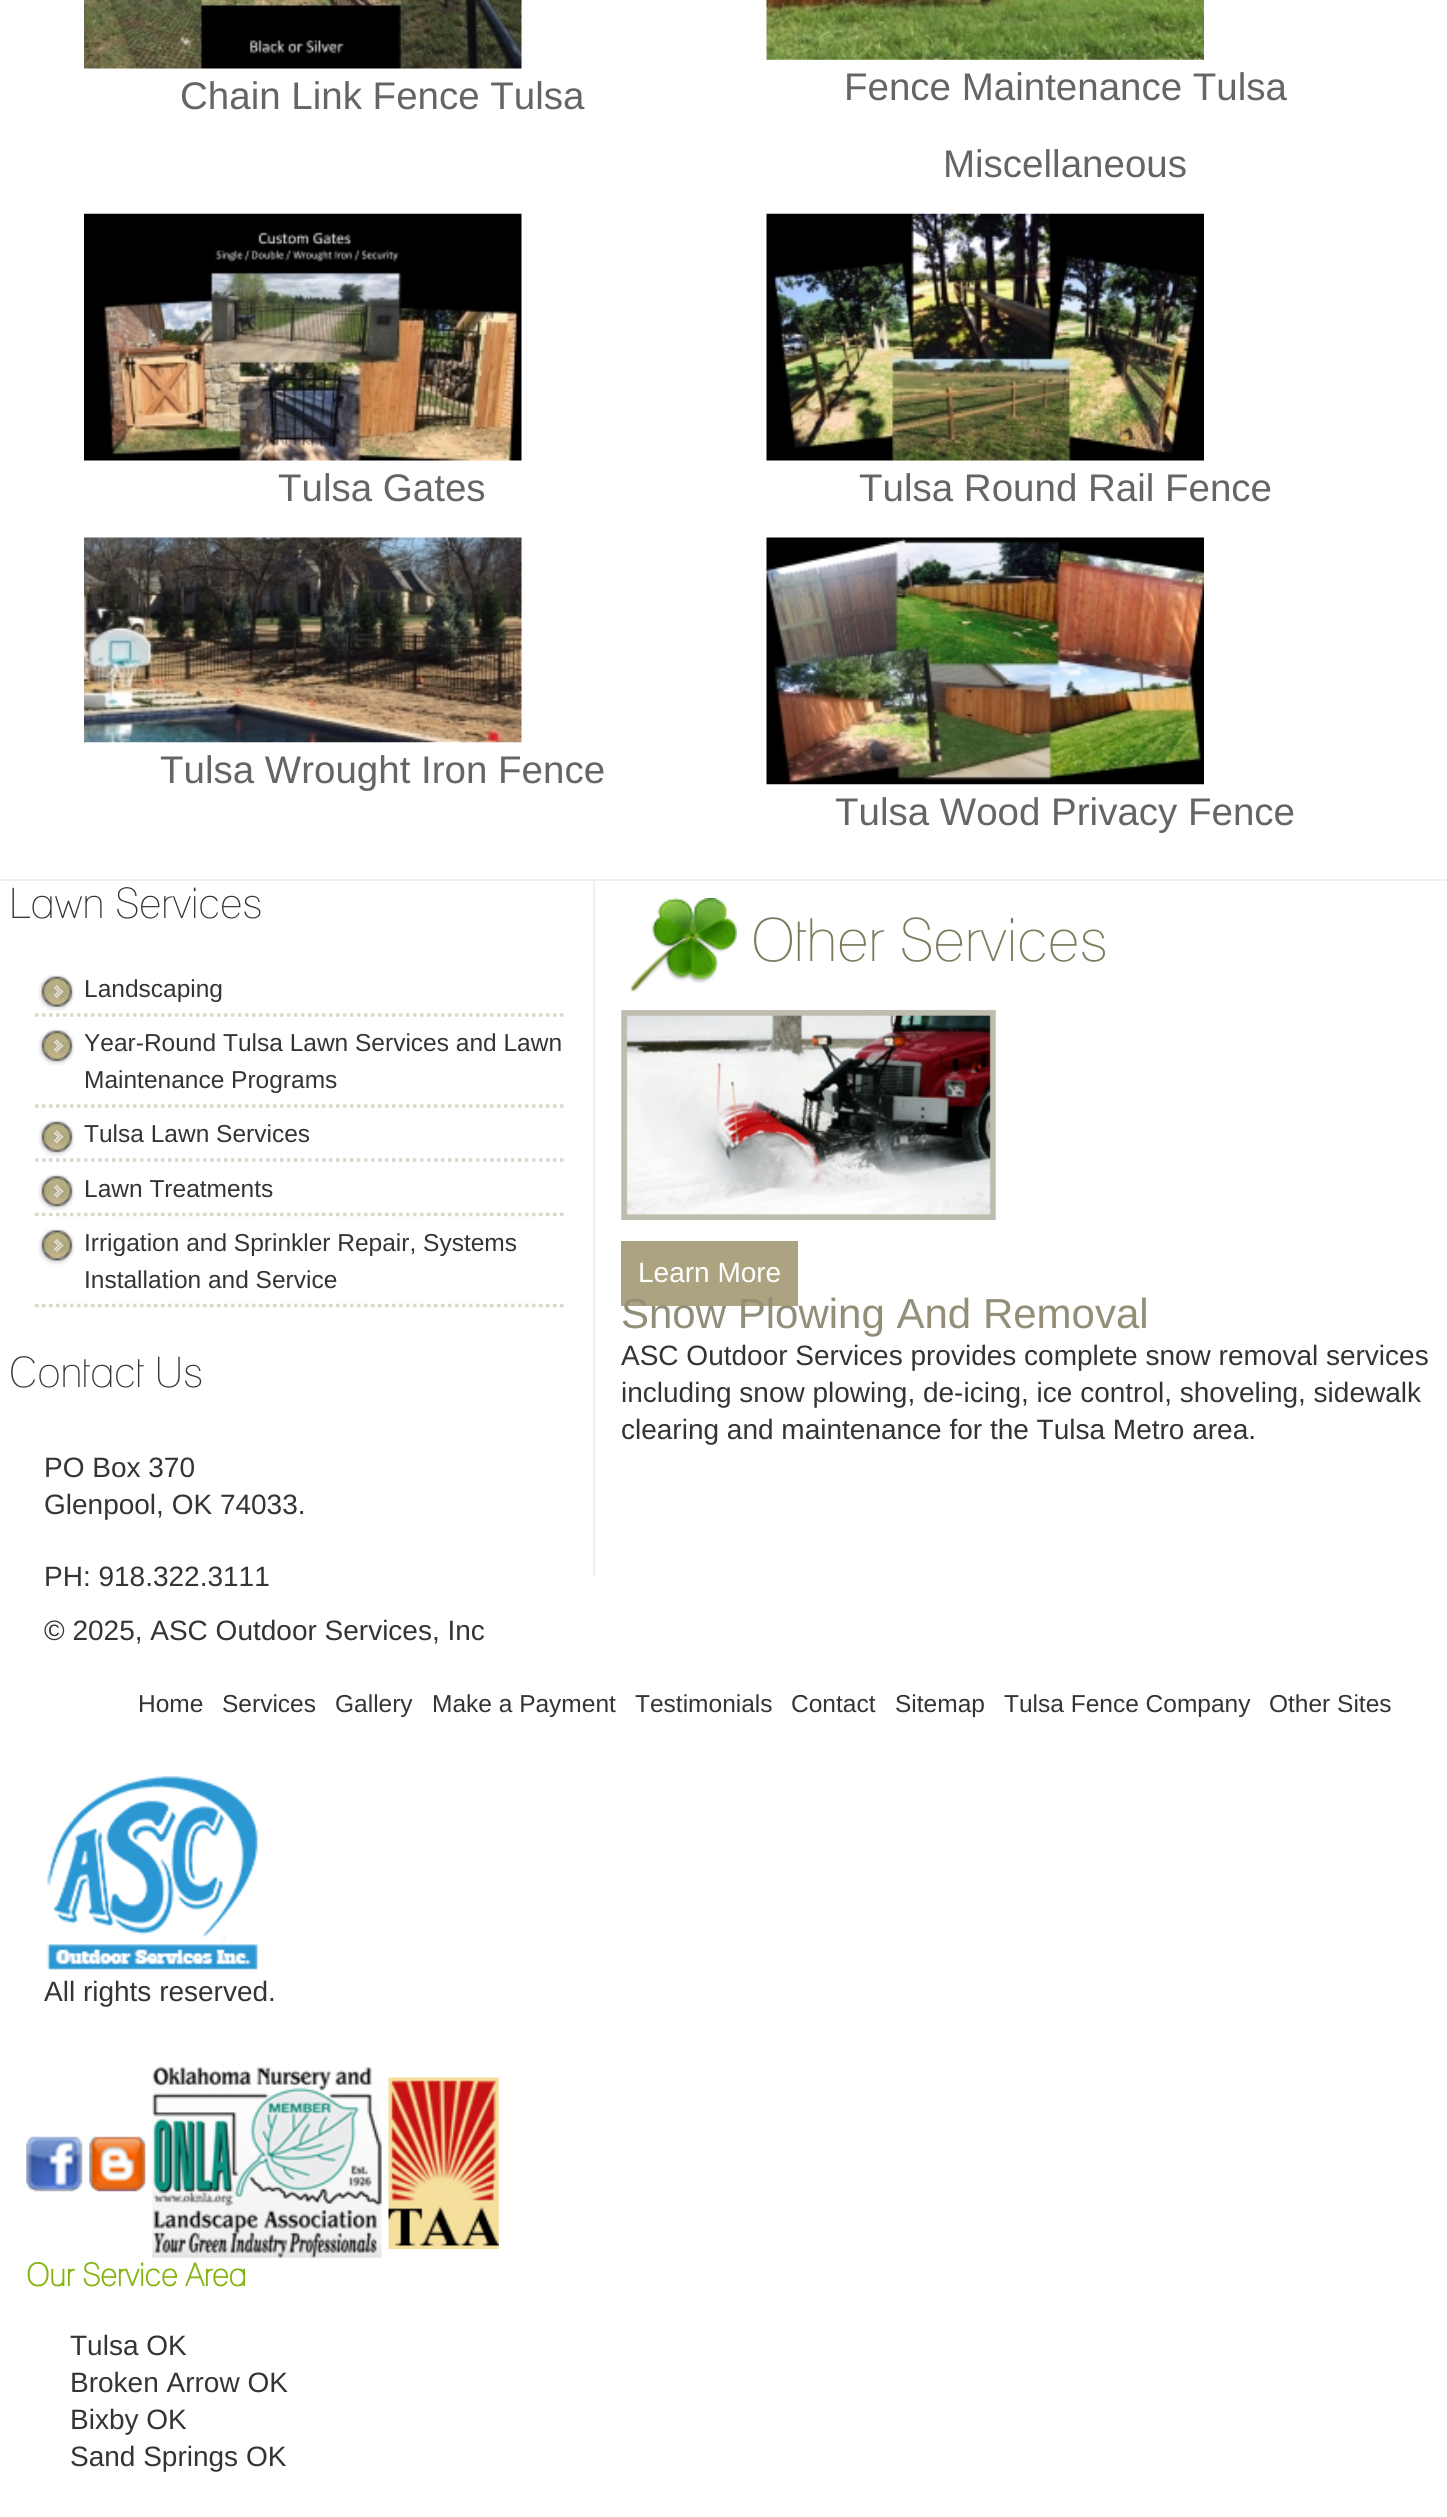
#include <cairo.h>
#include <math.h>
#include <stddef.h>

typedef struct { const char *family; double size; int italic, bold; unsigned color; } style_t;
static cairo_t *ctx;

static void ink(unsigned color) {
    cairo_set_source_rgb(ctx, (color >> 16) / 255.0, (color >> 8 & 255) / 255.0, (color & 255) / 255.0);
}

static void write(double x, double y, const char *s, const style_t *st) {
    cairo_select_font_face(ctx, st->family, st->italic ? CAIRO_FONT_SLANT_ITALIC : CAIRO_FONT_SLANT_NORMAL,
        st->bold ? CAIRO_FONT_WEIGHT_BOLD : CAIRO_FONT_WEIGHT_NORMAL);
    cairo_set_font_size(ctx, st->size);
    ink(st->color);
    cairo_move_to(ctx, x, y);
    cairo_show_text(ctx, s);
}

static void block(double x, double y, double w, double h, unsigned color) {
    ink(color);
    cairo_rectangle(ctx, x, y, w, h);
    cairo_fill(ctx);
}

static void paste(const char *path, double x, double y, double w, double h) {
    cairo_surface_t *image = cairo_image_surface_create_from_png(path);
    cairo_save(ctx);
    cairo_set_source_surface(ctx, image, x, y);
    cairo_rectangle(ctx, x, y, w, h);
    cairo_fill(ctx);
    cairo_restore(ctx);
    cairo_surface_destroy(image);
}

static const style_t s1 = {"Liberation Sans", 38.5, 0, 0, 0x656565};
static const style_t s2 = {"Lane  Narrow", 42, 0, 0, 0x343434};
static const style_t s3 = {"Liberation Sans", 24.5, 0, 0, 0x343434};
static const style_t s4 = {"Liberation Sans", 28, 0, 0, 0x343434};
static const style_t s5 = {"Lane  Narrow", 59.5, 0, 0, 0x7e7a5e};
static const style_t s6 = {"Liberation Sans", 28, 0, 0, 0xffffff};
static const style_t s7 = {"Liberation Sans", 42, 0, 0, 0x928e77};
static const style_t s8 = {"Lane  Narrow", 31.5, 0, 1, 0x85b412};

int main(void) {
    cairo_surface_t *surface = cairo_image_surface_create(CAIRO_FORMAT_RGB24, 1447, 2517);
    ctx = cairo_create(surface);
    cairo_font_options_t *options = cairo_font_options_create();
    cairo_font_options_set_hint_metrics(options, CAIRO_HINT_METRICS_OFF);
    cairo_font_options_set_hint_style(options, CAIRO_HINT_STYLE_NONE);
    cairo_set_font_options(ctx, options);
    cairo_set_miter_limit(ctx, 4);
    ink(0xffffff);
    cairo_paint(ctx);
    paste("pic1.png", 84, 0, 438, 69);
    write(180, 109, "Chain Link Fence Tulsa", &s1);
    paste("pic2.png", 766, 0, 438, 60);
    write(844, 100, "Fence Maintenance Tulsa", &s1);
    write(943, 177, "Miscellaneous", &s1);
    paste("pic3.png", 84, 213, 438, 248);
    write(278, 501, "Tulsa Gates", &s1);
    paste("pic4.png", 766, 213, 438, 248);
    write(859, 501, "Tulsa Round Rail Fence", &s1);
    paste("pic5.png", 84, 537, 438, 206);
    write(160, 783, "Tulsa Wrought Iron Fence", &s1);
    paste("pic6.png", 766, 537, 438, 248);
    write(835, 825, "Tulsa Wood Privacy Fence", &s1);
    block(0, 879, 1447, 2, 0xefefef);
    block(593, 880, 2, 697, 0xefefef);
    write(9, 918, "Lawn Services", &s2);
    paste("pic7.png", 38, 974, 37, 37);
    cairo_new_path(ctx);
    cairo_move_to(ctx, 35, 1015);
    cairo_line_to(ctx, 567, 1015);
    ink(0xdbd9c9);
    cairo_set_line_width(ctx, 3.5);
    cairo_set_dash(ctx, (double[]){3.5, 3.5}, 2, 0);
    cairo_stroke(ctx);
    write(84, 997, "Landscaping", &s3);
    paste("pic8.png", 38, 1029, 37, 37);
    cairo_new_path(ctx);
    cairo_move_to(ctx, 35, 1106);
    cairo_line_to(ctx, 567, 1106);
    ink(0xdbd9c9);
    cairo_stroke(ctx);
    write(84, 1051, "Year-Round Tulsa Lawn Services and Lawn", &s3);
    write(84, 1088, "Maintenance Programs", &s3);
    paste("pic8.png", 38, 1120, 37, 37);
    cairo_new_path(ctx);
    cairo_move_to(ctx, 35, 1160);
    cairo_line_to(ctx, 567, 1160);
    ink(0xdbd9c9);
    cairo_stroke(ctx);
    write(84, 1142, "Tulsa Lawn Services", &s3);
    paste("pic9.png", 38, 1174, 37, 37);
    cairo_new_path(ctx);
    cairo_move_to(ctx, 35, 1214.5);
    cairo_line_to(ctx, 567, 1214.5);
    ink(0xdbd9c9);
    cairo_stroke(ctx);
    write(84, 1197, "Lawn Treatments", &s3);
    paste("pic10.png", 38, 1228, 37, 37);
    cairo_new_path(ctx);
    cairo_move_to(ctx, 35, 1305.5);
    cairo_line_to(ctx, 567, 1305.5);
    ink(0xdbd9c9);
    cairo_stroke(ctx);
    write(84, 1251, "Irrigation and Sprinkler Repair, Systems", &s3);
    write(84, 1288, "Installation and Service", &s3);
    write(9, 1387, "Contact Us", &s2);
    write(44, 1477, "PO Box 370", &s4);
    write(44, 1514, "Glenpool, OK 74033.", &s4);
    write(44, 1586, "PH: 918.322.3111", &s4);
    paste("pic11.png", 630, 898, 107, 94);
    write(751, 961, "Other Services", &s5);
    paste("pic12.png", 621, 1010, 375, 210);
    block(621, 1241, 177, 65, 0xaca481);
    write(638, 1282, "Learn More", &s6);
    write(621, 1328, "Snow Plowing And Removal", &s7);
    write(621, 1365, "ASC Outdoor Services provides complete snow removal services", &s4);
    write(621, 1402, "including snow plowing, de-icing, ice control, shoveling, sidewalk", &s4);
    write(621, 1439, "clearing and maintenance for the Tulsa Metro area.", &s4);
    write(44, 1640, "© 2025, ASC Outdoor Services, Inc", &s4);
    write(138, 1712, "Home", &s3);
    write(222, 1712, "Services", &s3);
    write(335, 1712, "Gallery", &s3);
    write(432, 1712, "Make a Payment", &s3);
    write(635, 1712, "Testimonials", &s3);
    write(791, 1712, "Contact", &s3);
    write(895, 1712, "Sitemap", &s3);
    write(1004, 1712, "Tulsa Fence Company", &s3);
    write(1269, 1712, "Other Sites", &s3);
    paste("pic13.png", 46, 1776, 212, 194);
    write(44, 2001, "All rights reserved.", &s4);
    paste("pic14.png", 26, 2136, 57, 56);
    paste("pic15.png", 89, 2136, 57, 56);
    paste("pic16.png", 152, 2067, 230, 191);
    paste("pic17.png", 388, 2077, 111, 172);
    write(26, 2286, "Our Service Area", &s8);
    write(70, 2355, "Tulsa OK", &s4);
    write(70, 2392, "Broken Arrow OK", &s4);
    write(70, 2429, "Bixby OK", &s4);
    write(70, 2466, "Sand Springs OK", &s4);
    cairo_surface_write_to_png(surface, "screenshot.png");
    cairo_font_options_destroy(options);
    cairo_destroy(ctx);
    cairo_surface_destroy(surface);
    return 0;
}
